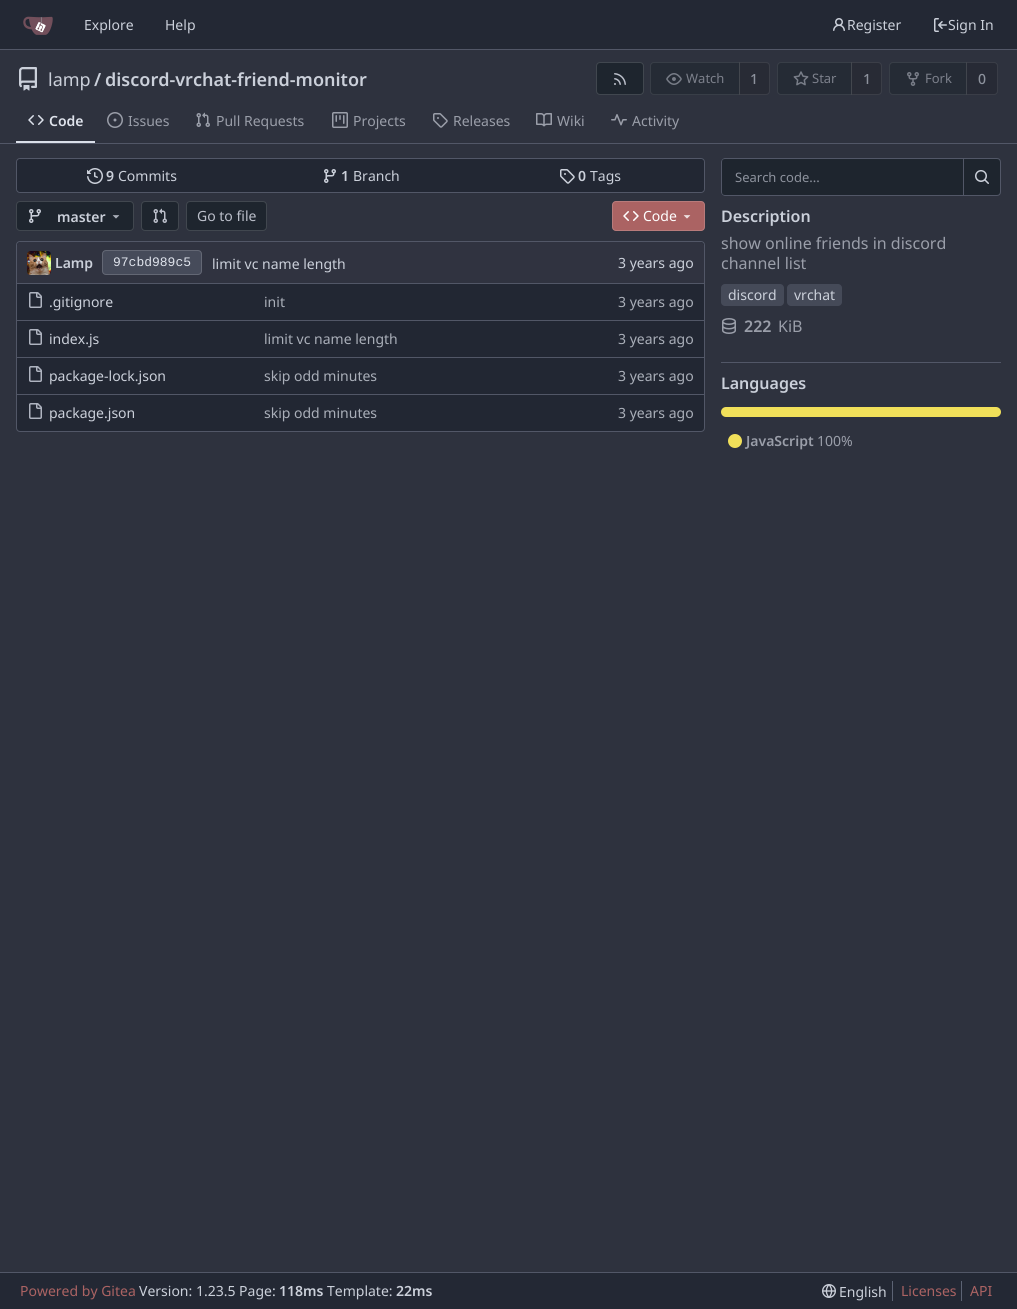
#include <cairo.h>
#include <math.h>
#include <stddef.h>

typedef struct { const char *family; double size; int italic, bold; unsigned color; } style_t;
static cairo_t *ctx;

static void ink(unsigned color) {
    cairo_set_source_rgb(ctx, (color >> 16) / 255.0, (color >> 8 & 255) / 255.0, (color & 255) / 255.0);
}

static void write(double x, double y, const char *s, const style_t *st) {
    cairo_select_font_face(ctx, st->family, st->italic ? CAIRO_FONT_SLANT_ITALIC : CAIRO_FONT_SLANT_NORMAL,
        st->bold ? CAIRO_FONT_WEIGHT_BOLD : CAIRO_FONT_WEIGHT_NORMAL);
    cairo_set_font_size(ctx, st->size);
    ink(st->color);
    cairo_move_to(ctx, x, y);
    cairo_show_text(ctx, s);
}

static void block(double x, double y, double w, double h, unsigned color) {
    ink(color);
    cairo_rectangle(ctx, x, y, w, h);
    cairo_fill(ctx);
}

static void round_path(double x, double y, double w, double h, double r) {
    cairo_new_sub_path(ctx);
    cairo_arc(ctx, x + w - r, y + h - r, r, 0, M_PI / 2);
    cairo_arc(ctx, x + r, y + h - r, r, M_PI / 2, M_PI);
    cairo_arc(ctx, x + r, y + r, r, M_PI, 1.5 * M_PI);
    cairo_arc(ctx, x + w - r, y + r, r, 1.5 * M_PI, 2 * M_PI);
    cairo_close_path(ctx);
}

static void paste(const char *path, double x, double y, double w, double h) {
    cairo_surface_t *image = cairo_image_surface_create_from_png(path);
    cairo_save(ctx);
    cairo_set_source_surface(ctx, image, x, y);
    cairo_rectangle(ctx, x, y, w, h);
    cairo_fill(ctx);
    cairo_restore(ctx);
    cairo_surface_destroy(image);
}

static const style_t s1 = {"Noto Sans", 14, 0, 0, 0xcbd0da};
static const style_t s2 = {"Noto Sans", 18, 0, 0, 0xcbd0da};
static const style_t s3 = {"Noto Sans SemiBold", 18, 0, 0, 0xcbd0da};
static const style_t s4 = {"Noto Sans", 13, 0, 0, 0x7c808b};
static const style_t s5 = {"Noto Sans Medium", 14, 0, 0, 0x8d929d};
static const style_t s6 = {"Noto Sans SemiBold", 14, 0, 0, 0xdfe3ec};
static const style_t s7 = {"Noto Sans", 14, 0, 0, 0x9a9ea9};
static const style_t s8 = {"Noto Sans SemiBold", 14, 0, 0, 0xcbd0da};
static const style_t s9 = {"Noto Sans", 14, 0, 0, 0xbbbfca};
static const style_t s10 = {"Noto Sans", 14, 0, 0, 0xffffff};
static const style_t s11 = {"Liberation Mono", 13, 0, 0, 0xdfe3ec};
static const style_t s12 = {"Noto Sans", 14, 0, 0, 0xaaafb9};
static const style_t s13 = {"Noto Sans", 13, 0, 0, 0x8d929d};
static const style_t s14 = {"Noto Sans SemiBold", 16, 0, 0, 0xcbd0da};
static const style_t s15 = {"Noto Sans", 16, 0, 0, 0x9a9ea9};
static const style_t s16 = {"Noto Sans SemiBold", 16, 0, 0, 0x9a9ea9};
static const style_t s17 = {"Noto Sans SemiBold", 14, 0, 0, 0x9a9ea9};
static const style_t s18 = {"Noto Sans", 14, 0, 0, 0xab6363};

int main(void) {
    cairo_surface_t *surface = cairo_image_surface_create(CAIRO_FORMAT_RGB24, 1017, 1309);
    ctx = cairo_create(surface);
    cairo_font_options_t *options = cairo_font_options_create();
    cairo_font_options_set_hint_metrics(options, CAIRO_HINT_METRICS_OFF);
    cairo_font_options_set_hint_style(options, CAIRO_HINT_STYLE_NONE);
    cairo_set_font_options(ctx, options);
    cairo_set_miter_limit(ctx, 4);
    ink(0x2e323e);
    cairo_paint(ctx);
    block(0, 0, 1017, 49, 0x232834);
    block(0, 49, 1017, 1, 0x525767);
    paste("pic1.png", 23, 16, 30, 19);
    write(84, 30, "Explore", &s1);
    write(165, 30, "Help", &s1);
    paste("pic2.png", 833, 18, 12, 13);
    write(847, 30, "Register", &s1);
    paste("pic3.png", 934, 18, 13, 14);
    write(948, 30, "Sign In", &s1);
    paste("pic4.png", 19, 67, 18, 24);
    write(48, 86, "lamp", &s2);
    write(94, 86, "/", &s3);
    write(105, 86, "discord-vrchat-friend-monitor", &s3);
    ink(0x1e252e);
    round_path(596, 62, 48, 33, 4);
    cairo_fill(ctx);
    round_path(596.5, 62.5, 47, 32, 3.5);
    cairo_set_source_rgba(ctx, 1, 1, 1, 0.16);
    cairo_set_line_width(ctx, 1);
    cairo_stroke(ctx);
    paste("pic5.png", 614, 73, 12, 12);
    ink(0x252b35);
    cairo_new_path(ctx);
    cairo_move_to(ctx, 654, 62);
    cairo_line_to(ctx, 740, 62);
    cairo_line_to(ctx, 740, 95);
    cairo_line_to(ctx, 654, 95);
    cairo_curve_to(ctx, 652, 95, 650, 93, 650, 91);
    cairo_line_to(ctx, 650, 66);
    cairo_curve_to(ctx, 650, 64, 652, 62, 654, 62);
    cairo_close_path(ctx);
    cairo_fill(ctx);
    cairo_new_path(ctx);
    cairo_move_to(ctx, 654, 62.5);
    cairo_line_to(ctx, 739.5, 62.5);
    cairo_line_to(ctx, 739.5, 94.5);
    cairo_line_to(ctx, 654, 94.5);
    cairo_curve_to(ctx, 652, 94.5, 650.5, 93, 650.5, 91);
    cairo_line_to(ctx, 650.5, 66);
    cairo_curve_to(ctx, 650.5, 64, 652, 62.5, 654, 62.5);
    cairo_close_path(ctx);
    cairo_set_source_rgba(ctx, 0.631, 0.639, 0.659, 0.16);
    cairo_stroke(ctx);
    paste("pic6.png", 666, 73, 16, 12);
    write(686, 83, "Watch", &s4);
    cairo_set_source_rgba(ctx, 0, 0, 0, 0.14);
    cairo_new_path(ctx);
    cairo_move_to(ctx, 739, 62);
    cairo_line_to(ctx, 766, 62);
    cairo_curve_to(ctx, 768, 62, 770, 64, 770, 66);
    cairo_line_to(ctx, 770, 91);
    cairo_curve_to(ctx, 770, 93, 768, 95, 766, 95);
    cairo_line_to(ctx, 739, 95);
    cairo_close_path(ctx);
    cairo_fill(ctx);
    cairo_new_path(ctx);
    cairo_move_to(ctx, 739.5, 62.5);
    cairo_line_to(ctx, 766, 62.5);
    cairo_curve_to(ctx, 768, 62.5, 769.5, 64, 769.5, 66);
    cairo_line_to(ctx, 769.5, 91);
    cairo_curve_to(ctx, 769.5, 93, 768, 94.5, 766, 94.5);
    cairo_line_to(ctx, 739.5, 94.5);
    cairo_close_path(ctx);
    cairo_set_source_rgba(ctx, 1, 1, 1, 0.09);
    cairo_stroke(ctx);
    write(750, 84, "1", &s5);
    ink(0x252b35);
    cairo_new_path(ctx);
    cairo_move_to(ctx, 781, 62);
    cairo_line_to(ctx, 852, 62);
    cairo_line_to(ctx, 852, 95);
    cairo_line_to(ctx, 781, 95);
    cairo_curve_to(ctx, 779, 95, 777, 93, 777, 91);
    cairo_line_to(ctx, 777, 66);
    cairo_curve_to(ctx, 777, 64, 779, 62, 781, 62);
    cairo_close_path(ctx);
    cairo_fill(ctx);
    cairo_new_path(ctx);
    cairo_move_to(ctx, 781, 62.5);
    cairo_line_to(ctx, 851.5, 62.5);
    cairo_line_to(ctx, 851.5, 94.5);
    cairo_line_to(ctx, 781, 94.5);
    cairo_curve_to(ctx, 779, 94.5, 777.5, 93, 777.5, 91);
    cairo_line_to(ctx, 777.5, 66);
    cairo_curve_to(ctx, 777.5, 64, 779, 62.5, 781, 62.5);
    cairo_close_path(ctx);
    cairo_set_source_rgba(ctx, 0.631, 0.639, 0.659, 0.16);
    cairo_stroke(ctx);
    paste("pic7.png", 793, 71, 16, 15);
    write(812, 83, "Star", &s4);
    cairo_set_source_rgba(ctx, 0, 0, 0, 0.14);
    cairo_new_path(ctx);
    cairo_move_to(ctx, 851, 62);
    cairo_line_to(ctx, 878, 62);
    cairo_curve_to(ctx, 880, 62, 882, 64, 882, 66);
    cairo_line_to(ctx, 882, 91);
    cairo_curve_to(ctx, 882, 93, 880, 95, 878, 95);
    cairo_line_to(ctx, 851, 95);
    cairo_close_path(ctx);
    cairo_fill(ctx);
    cairo_new_path(ctx);
    cairo_move_to(ctx, 851.5, 62.5);
    cairo_line_to(ctx, 878, 62.5);
    cairo_curve_to(ctx, 880, 62.5, 881.5, 64, 881.5, 66);
    cairo_line_to(ctx, 881.5, 91);
    cairo_curve_to(ctx, 881.5, 93, 880, 94.5, 878, 94.5);
    cairo_line_to(ctx, 851.5, 94.5);
    cairo_close_path(ctx);
    cairo_set_source_rgba(ctx, 1, 1, 1, 0.09);
    cairo_stroke(ctx);
    write(863, 84, "1", &s5);
    ink(0x252b35);
    cairo_new_path(ctx);
    cairo_move_to(ctx, 893, 62);
    cairo_line_to(ctx, 967, 62);
    cairo_line_to(ctx, 967, 95);
    cairo_line_to(ctx, 893, 95);
    cairo_curve_to(ctx, 891, 95, 889, 93, 889, 91);
    cairo_line_to(ctx, 889, 66);
    cairo_curve_to(ctx, 889, 64, 891, 62, 893, 62);
    cairo_close_path(ctx);
    cairo_fill(ctx);
    cairo_new_path(ctx);
    cairo_move_to(ctx, 893, 62.5);
    cairo_line_to(ctx, 966.5, 62.5);
    cairo_line_to(ctx, 966.5, 94.5);
    cairo_line_to(ctx, 893, 94.5);
    cairo_curve_to(ctx, 891, 94.5, 889.5, 93, 889.5, 91);
    cairo_line_to(ctx, 889.5, 66);
    cairo_curve_to(ctx, 889.5, 64, 891, 62.5, 893, 62.5);
    cairo_close_path(ctx);
    cairo_set_source_rgba(ctx, 0.631, 0.639, 0.659, 0.16);
    cairo_stroke(ctx);
    paste("pic8.png", 907, 72, 12, 14);
    write(925, 83, "Fork", &s4);
    cairo_set_source_rgba(ctx, 0.082, 0.09, 0.11, 0.25);
    cairo_new_path(ctx);
    cairo_move_to(ctx, 966, 62);
    cairo_line_to(ctx, 994, 62);
    cairo_curve_to(ctx, 996, 62, 998, 64, 998, 66);
    cairo_line_to(ctx, 998, 91);
    cairo_curve_to(ctx, 998, 93, 996, 95, 994, 95);
    cairo_line_to(ctx, 966, 95);
    cairo_close_path(ctx);
    cairo_fill(ctx);
    cairo_new_path(ctx);
    cairo_move_to(ctx, 966.5, 62.5);
    cairo_line_to(ctx, 994, 62.5);
    cairo_curve_to(ctx, 996, 62.5, 997.5, 64, 997.5, 66);
    cairo_line_to(ctx, 997.5, 91);
    cairo_curve_to(ctx, 997.5, 93, 996, 94.5, 994, 94.5);
    cairo_line_to(ctx, 966.5, 94.5);
    cairo_close_path(ctx);
    cairo_set_source_rgba(ctx, 0.631, 0.639, 0.659, 0.16);
    cairo_stroke(ctx);
    write(978, 84, "0", &s5);
    block(16, 141, 79, 2, 0xdbe0ea);
    paste("pic9.png", 28, 115, 16, 10);
    write(49, 126, "Code", &s6);
    paste("pic10.png", 107, 112, 16, 16);
    write(128, 126, "Issues", &s7);
    paste("pic11.png", 196, 112, 14, 15);
    write(216, 126, "Pull Requests", &s7);
    paste("pic12.png", 332, 112, 16, 16);
    write(353, 126, "Projects", &s7);
    paste("pic13.png", 433, 113, 15, 15);
    write(453, 126, "Releases", &s7);
    paste("pic14.png", 536, 113, 16, 14);
    write(557, 126, "Wiki", &s7);
    paste("pic15.png", 611, 114, 16, 12);
    write(632, 126, "Activity", &s7);
    block(0, 143, 1017, 1, 0x525767);
    ink(0x222733);
    round_path(16.5, 158.5, 688, 34, 3.5);
    cairo_fill_preserve(ctx);
    ink(0x525767);
    cairo_stroke(ctx);
    ink(0x222733);
    round_path(17, 159, 687, 33, 4);
    cairo_fill(ctx);
    paste("pic16.png", 87, 168, 16, 16);
    write(106, 181, "9", &s8);
    write(118, 181, "Commits", &s1);
    paste("pic17.png", 324, 169, 12, 14);
    write(341, 181, "1", &s8);
    write(353, 181, "Branch", &s1);
    paste("pic18.png", 560, 169, 15, 15);
    write(578, 181, "0", &s8);
    write(590, 181, "Tags", &s1);
    ink(0x1e252e);
    round_path(16, 201, 118, 30, 4);
    cairo_fill(ctx);
    round_path(16.5, 201.5, 117, 29, 3.5);
    cairo_set_source_rgba(ctx, 1, 1, 1, 0.16);
    cairo_stroke(ctx);
    paste("pic19.png", 29, 209, 12, 14);
    write(57, 222, "master", &s8);
    paste("pic20.png", 112, 215, 8, 4);
    ink(0x1e252e);
    round_path(141, 201, 38, 30, 4);
    cairo_fill(ctx);
    round_path(141.5, 201.5, 37, 29, 3.5);
    cairo_set_source_rgba(ctx, 1, 1, 1, 0.16);
    cairo_stroke(ctx);
    paste("pic21.png", 153, 208, 14, 15);
    ink(0x1e252e);
    round_path(186, 201, 81, 30, 4);
    cairo_fill(ctx);
    round_path(186.5, 201.5, 80, 29, 3.5);
    cairo_set_source_rgba(ctx, 1, 1, 1, 0.16);
    cairo_stroke(ctx);
    write(197, 221, "Go to file", &s9);
    ink(0xab6363);
    round_path(612, 201, 93, 30, 4);
    cairo_fill(ctx);
    round_path(612.5, 201.5, 92, 29, 3.5);
    cairo_set_source_rgba(ctx, 1, 1, 1, 0.16);
    cairo_stroke(ctx);
    paste("pic22.png", 623, 211, 16, 10);
    write(643, 221, "Code", &s10);
    paste("pic23.png", 683, 215, 8, 4);
    ink(0x222733);
    round_path(16.5, 241.5, 688, 190, 3.5);
    cairo_fill_preserve(ctx);
    ink(0x525767);
    cairo_stroke(ctx);
    ink(0x303340);
    cairo_new_path(ctx);
    cairo_move_to(ctx, 21, 242);
    cairo_line_to(ctx, 700, 242);
    cairo_curve_to(ctx, 702, 242, 704, 244, 704, 246);
    cairo_line_to(ctx, 704, 283);
    cairo_line_to(ctx, 17, 283);
    cairo_line_to(ctx, 17, 246);
    cairo_curve_to(ctx, 17, 244, 19, 242, 21, 242);
    cairo_close_path(ctx);
    cairo_fill(ctx);
    paste("pic24.png", 27, 251, 24, 24);
    write(55, 268, "Lamp", &s8);
    ink(0x464b5a);
    round_path(102, 250, 100, 25, 4);
    cairo_fill(ctx);
    round_path(102.5, 250.5, 99, 24, 3.5);
    cairo_set_source_rgba(ctx, 1, 1, 1, 0.16);
    cairo_stroke(ctx);
    write(113, 266, "97cbd989c5", &s11);
    write(212, 269, "limit vc name length", &s1);
    write(618, 268, "3 years ago", &s1);
    block(17, 283, 591, 1, 0x525767);
    paste("pic25.png", 29, 292, 13, 16);
    write(49, 307, ".gitignore", &s1);
    write(264, 307, "init", &s12);
    block(608, 283, 96, 1, 0x525767);
    write(618, 307, "3 years ago", &s12);
    block(17, 320, 591, 1, 0x525767);
    paste("pic25.png", 29, 329, 13, 16);
    write(49, 344, "index.js", &s1);
    write(264, 344, "limit vc name length", &s12);
    block(608, 320, 96, 1, 0x525767);
    write(618, 344, "3 years ago", &s12);
    block(17, 357, 591, 1, 0x525767);
    paste("pic25.png", 29, 366, 13, 16);
    write(49, 381, "package-lock.json", &s1);
    write(264, 381, "skip odd minutes", &s12);
    block(608, 357, 96, 1, 0x525767);
    write(618, 381, "3 years ago", &s12);
    block(17, 394, 591, 1, 0x525767);
    paste("pic25.png", 29, 403, 13, 16);
    write(49, 418, "package.json", &s1);
    write(264, 418, "skip odd minutes", &s12);
    block(608, 394, 96, 1, 0x525767);
    write(618, 418, "3 years ago", &s12);
    ink(0x1e252e);
    cairo_new_path(ctx);
    cairo_move_to(ctx, 725, 158);
    cairo_line_to(ctx, 963, 158);
    cairo_line_to(ctx, 963, 196);
    cairo_line_to(ctx, 725, 196);
    cairo_curve_to(ctx, 723, 196, 721, 194, 721, 192);
    cairo_line_to(ctx, 721, 162);
    cairo_curve_to(ctx, 721, 160, 723, 158, 725, 158);
    cairo_close_path(ctx);
    cairo_fill(ctx);
    ink(0x525767);
    cairo_set_fill_rule(ctx, CAIRO_FILL_RULE_EVEN_ODD);
    cairo_new_path(ctx);
    cairo_move_to(ctx, 725, 158);
    cairo_line_to(ctx, 963, 158);
    cairo_line_to(ctx, 963, 196);
    cairo_line_to(ctx, 725, 196);
    cairo_curve_to(ctx, 723, 196, 721, 194, 721, 192);
    cairo_line_to(ctx, 721, 162);
    cairo_curve_to(ctx, 721, 160, 723, 158, 725, 158);
    cairo_close_path(ctx);
    cairo_move_to(ctx, 725, 159);
    cairo_line_to(ctx, 963, 159);
    cairo_line_to(ctx, 963, 195);
    cairo_line_to(ctx, 725, 195);
    cairo_curve_to(ctx, 723, 195, 722, 194, 722, 192);
    cairo_line_to(ctx, 722, 162);
    cairo_curve_to(ctx, 722, 160, 723, 159, 725, 159);
    cairo_close_path(ctx);
    cairo_fill(ctx);
    write(735, 182, "Search code...", &s13);
    ink(0x1e252e);
    cairo_new_path(ctx);
    cairo_move_to(ctx, 963.5, 158.5);
    cairo_line_to(ctx, 997, 158.5);
    cairo_curve_to(ctx, 999, 158.5, 1000.5, 160, 1000.5, 162);
    cairo_line_to(ctx, 1000.5, 192);
    cairo_curve_to(ctx, 1000.5, 194, 999, 195.5, 997, 195.5);
    cairo_line_to(ctx, 963.5, 195.5);
    cairo_close_path(ctx);
    cairo_fill_preserve(ctx);
    ink(0x525767);
    cairo_stroke(ctx);
    paste("pic26.png", 975, 170, 14, 14);
    write(721, 222, "Description", &s14);
    write(721, 249, "show online friends in discord", &s15);
    write(721, 269, "channel list", &s15);
    ink(0x454a58);
    round_path(721, 284, 63, 22, 4);
    cairo_fill(ctx);
    write(728, 300, "discord", &s1);
    ink(0x454a58);
    round_path(787, 284, 55, 22, 4);
    cairo_fill(ctx);
    write(794, 300, "vrchat", &s1);
    paste("pic27.png", 722, 318, 14, 16);
    write(744, 332, "222", &s16);
    write(778, 332, "KiB", &s15);
    block(721, 362, 280, 1, 0x525767);
    write(721, 389, "Languages", &s14);
    ink(0xf1e05a);
    round_path(721, 407, 280, 10, 5);
    cairo_fill(ctx);
    cairo_arc(ctx, 735, 441, 7, 0, 2 * M_PI);
    cairo_fill(ctx);
    write(746, 446, "JavaScript", &s17);
    write(817, 446, "100%", &s7);
    block(0, 1273, 1017, 36, 0x232834);
    block(0, 1272, 1017, 1, 0x525767);
    write(20, 1296, "Powered by Gitea", &s18);
    write(139, 1296, "Version: 1.23.5 Page:", &s1);
    write(279, 1296, "118ms", &s8);
    write(327, 1296, "Template:", &s1);
    write(396, 1296, "22ms", &s8);
    paste("pic28.png", 822, 1284, 14, 14);
    write(839, 1297, "English", &s1);
    block(892, 1281, 1, 20, 0x5c6374);
    write(901, 1296, "Licenses", &s18);
    block(961, 1281, 1, 20, 0x5c6374);
    write(970, 1296, "API", &s18);
    cairo_surface_write_to_png(surface, "screenshot.png");
    cairo_font_options_destroy(options);
    cairo_destroy(ctx);
    cairo_surface_destroy(surface);
    return 0;
}
